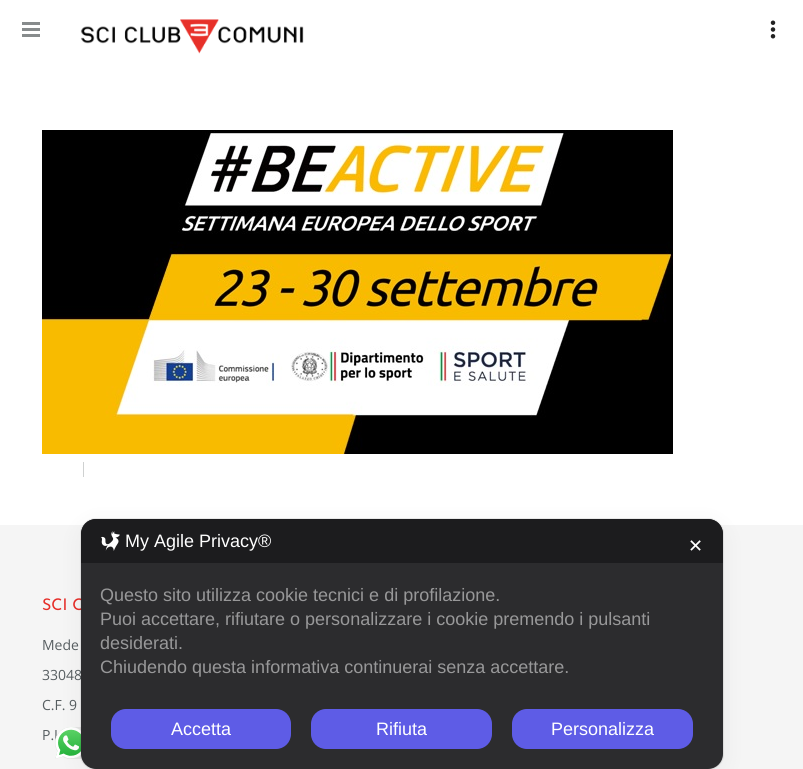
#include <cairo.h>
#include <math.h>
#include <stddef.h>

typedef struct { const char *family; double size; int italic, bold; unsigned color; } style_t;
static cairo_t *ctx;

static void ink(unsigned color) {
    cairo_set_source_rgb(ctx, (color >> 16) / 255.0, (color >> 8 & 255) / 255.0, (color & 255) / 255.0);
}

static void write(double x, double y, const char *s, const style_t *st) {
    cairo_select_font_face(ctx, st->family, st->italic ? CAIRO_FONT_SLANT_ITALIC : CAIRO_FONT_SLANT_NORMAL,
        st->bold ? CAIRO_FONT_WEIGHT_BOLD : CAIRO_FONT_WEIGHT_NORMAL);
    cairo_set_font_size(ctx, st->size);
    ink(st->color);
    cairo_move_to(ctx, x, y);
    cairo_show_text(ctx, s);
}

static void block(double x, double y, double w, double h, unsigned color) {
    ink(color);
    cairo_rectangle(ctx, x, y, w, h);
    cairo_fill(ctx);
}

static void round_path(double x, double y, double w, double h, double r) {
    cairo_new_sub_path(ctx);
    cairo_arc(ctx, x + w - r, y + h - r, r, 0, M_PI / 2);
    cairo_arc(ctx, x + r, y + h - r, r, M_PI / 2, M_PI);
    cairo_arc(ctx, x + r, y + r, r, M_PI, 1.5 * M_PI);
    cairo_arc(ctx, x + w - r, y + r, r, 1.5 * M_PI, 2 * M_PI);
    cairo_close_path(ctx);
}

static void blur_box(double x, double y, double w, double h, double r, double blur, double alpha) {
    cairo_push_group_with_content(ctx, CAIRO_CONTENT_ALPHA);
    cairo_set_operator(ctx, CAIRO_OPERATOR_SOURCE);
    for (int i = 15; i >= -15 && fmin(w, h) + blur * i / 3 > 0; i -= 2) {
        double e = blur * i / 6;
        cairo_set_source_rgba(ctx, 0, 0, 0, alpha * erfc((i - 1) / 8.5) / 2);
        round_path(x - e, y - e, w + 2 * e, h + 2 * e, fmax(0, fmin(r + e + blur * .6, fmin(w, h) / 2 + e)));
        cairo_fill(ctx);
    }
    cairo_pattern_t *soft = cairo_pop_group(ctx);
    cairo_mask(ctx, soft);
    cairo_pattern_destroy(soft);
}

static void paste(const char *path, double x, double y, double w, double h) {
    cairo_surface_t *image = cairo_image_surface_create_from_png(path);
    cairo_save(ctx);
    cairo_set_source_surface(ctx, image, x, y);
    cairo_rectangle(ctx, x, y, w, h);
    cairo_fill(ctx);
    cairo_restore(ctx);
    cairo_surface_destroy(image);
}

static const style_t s1 = {"Josefin Sans", 16, 0, 0, 0xe62e29};
static const style_t s2 = {"Open Sans", 14, 0, 0, 0x575e61};
static const style_t s3 = {"Liberation Sans", 18, 0, 0, 0xffffff};
static const style_t s4 = {"DejaVu Sans", 18, 0, 0, 0xffffff};
static const style_t s5 = {"Liberation Sans", 18, 0, 0, 0x989899};

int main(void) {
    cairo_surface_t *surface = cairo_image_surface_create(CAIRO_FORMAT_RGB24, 803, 769);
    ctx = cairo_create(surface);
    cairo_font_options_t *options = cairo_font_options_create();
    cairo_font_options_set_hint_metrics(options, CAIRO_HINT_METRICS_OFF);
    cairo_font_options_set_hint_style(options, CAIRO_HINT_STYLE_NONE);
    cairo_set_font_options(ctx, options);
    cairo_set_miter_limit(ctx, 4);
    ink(0xffffff);
    cairo_paint(ctx);
    block(22, 22, 18, 3, 0x878b8c);
    block(22, 28, 18, 3, 0x878b8c);
    block(22, 34, 18, 3, 0x878b8c);
    paste("pic1.png", 80, 19, 224, 35);
    paste("pic2.png", 770, 20, 6, 19);
    paste("pic3.png", 42, 130, 631, 324);
    block(83, 462, 1, 15, 0xcfd1d1);
    block(0, 525, 803, 244, 0xf5f5f5);
    write(42, 610, "SCI C", &s1);
    write(42, 650, "Mede", &s2);
    write(42, 680, "33048", &s2);
    write(42, 710, "C.F. 9", &s2);
    write(42, 740, "P.I", &s2);
    ink(0xe4e4e4);
    round_path(55, 727, 161, 32, 16);
    cairo_fill(ctx);
    paste("pic5.png", 55, 727, 27, 32);
    round_path(80.5, 518.5, 643, 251, 15.5);
    cairo_set_source_rgba(ctx, 0, 0, 0, 0.08);
    cairo_set_line_width(ctx, 1);
    cairo_stroke(ctx);
    ink(0x000000);
    blur_box(81, 525, 642, 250, 15, 12, 0.05);
    ink(0x2c2c2e);
    round_path(81, 519, 642, 250, 15);
    cairo_fill(ctx);
    ink(0x1c1c1e);
    cairo_new_path(ctx);
    cairo_move_to(ctx, 96, 519);
    cairo_line_to(ctx, 708, 519);
    cairo_curve_to(ctx, 716.5, 519, 723, 525.5, 723, 534);
    cairo_line_to(ctx, 723, 563);
    cairo_line_to(ctx, 81, 563);
    cairo_line_to(ctx, 81, 534);
    cairo_curve_to(ctx, 81, 525.5, 87.5, 519, 96, 519);
    cairo_close_path(ctx);
    cairo_fill(ctx);
    paste("pic4.png", 101, 531, 19, 20);
    write(125, 547, "My Agile Privacy®", &s3);
    write(688, 552, "✕", &s4);
    write(100, 601, "Questo sito utilizza cookie tecnici e di profilazione.", &s5);
    write(100, 625, "Puoi accettare, rifiutare o personalizzare i cookie premendo i pulsanti", &s5);
    write(100, 649, "desiderati.", &s5);
    write(100, 673, "Chiudendo questa informativa continuerai senza accettare.", &s5);
    ink(0x5e5ce6);
    round_path(111, 709, 180, 40, 15);
    cairo_fill(ctx);
    write(171, 735, "Accetta", &s3);
    ink(0x5e5ce6);
    round_path(311, 709, 181, 40, 15);
    cairo_fill(ctx);
    write(376, 735, "Rifiuta", &s3);
    ink(0x5e5ce6);
    round_path(512, 709, 181, 40, 15);
    cairo_fill(ctx);
    write(551, 735, "Personalizza", &s3);
    cairo_surface_write_to_png(surface, "screenshot.png");
    cairo_font_options_destroy(options);
    cairo_destroy(ctx);
    cairo_surface_destroy(surface);
    return 0;
}
